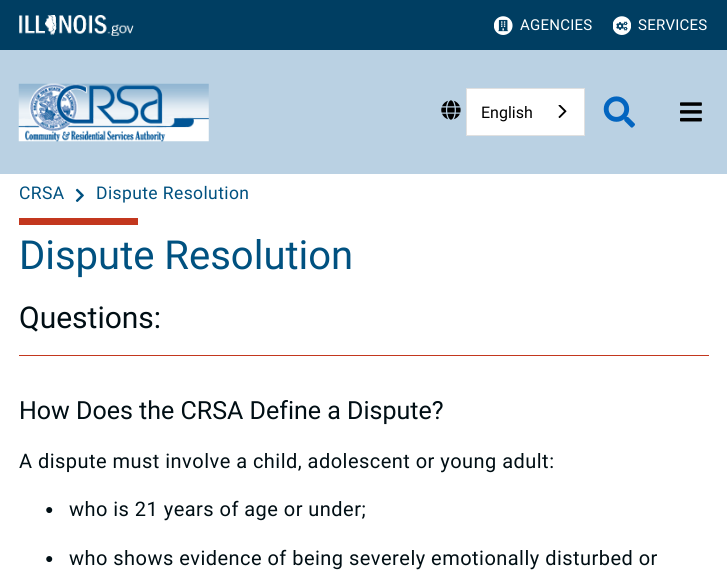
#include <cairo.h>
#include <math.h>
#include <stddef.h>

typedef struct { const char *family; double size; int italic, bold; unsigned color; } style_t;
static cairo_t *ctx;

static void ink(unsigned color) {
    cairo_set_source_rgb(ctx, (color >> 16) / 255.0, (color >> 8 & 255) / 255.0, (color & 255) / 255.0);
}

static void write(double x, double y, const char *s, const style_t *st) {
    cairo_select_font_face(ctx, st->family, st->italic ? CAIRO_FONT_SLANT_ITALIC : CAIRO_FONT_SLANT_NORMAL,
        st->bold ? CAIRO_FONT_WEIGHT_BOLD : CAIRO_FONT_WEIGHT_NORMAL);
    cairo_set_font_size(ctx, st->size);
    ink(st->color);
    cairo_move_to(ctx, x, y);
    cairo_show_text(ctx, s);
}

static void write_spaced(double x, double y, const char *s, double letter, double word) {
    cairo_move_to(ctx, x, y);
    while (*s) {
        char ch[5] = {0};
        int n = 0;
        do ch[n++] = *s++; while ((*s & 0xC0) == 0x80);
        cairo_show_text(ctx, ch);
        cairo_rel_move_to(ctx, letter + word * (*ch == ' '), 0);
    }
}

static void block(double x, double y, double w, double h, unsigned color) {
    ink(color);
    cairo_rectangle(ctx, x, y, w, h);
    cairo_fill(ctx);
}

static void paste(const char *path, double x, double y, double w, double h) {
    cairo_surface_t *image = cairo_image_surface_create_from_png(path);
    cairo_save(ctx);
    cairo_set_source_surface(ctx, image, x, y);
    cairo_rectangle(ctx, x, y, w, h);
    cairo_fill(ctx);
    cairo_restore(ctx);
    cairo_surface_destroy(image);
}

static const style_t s1 = {"Roboto", 16, 0, 0, 0x000000};
static const style_t s2 = {"Roboto", 40, 0, 0, 0x005180};
static const style_t s3 = {"Roboto", 30, 0, 0, 0x000e14};
static const style_t s4 = {"Roboto", 25, 0, 0, 0x000e14};

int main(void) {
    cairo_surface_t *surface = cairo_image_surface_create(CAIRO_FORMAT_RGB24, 727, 572);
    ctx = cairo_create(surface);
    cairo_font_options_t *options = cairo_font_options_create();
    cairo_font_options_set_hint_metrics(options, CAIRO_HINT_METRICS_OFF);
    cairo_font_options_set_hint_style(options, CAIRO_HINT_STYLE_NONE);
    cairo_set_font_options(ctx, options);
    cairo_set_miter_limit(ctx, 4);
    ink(0xffffff);
    cairo_paint(ctx);
    block(0, 0, 727, 50, 0x003e62);
    paste("pic1.png", 19, 15, 115, 21);
    paste("pic2.png", 494, 16, 19, 19);
    cairo_select_font_face(ctx, "Roboto", CAIRO_FONT_SLANT_NORMAL, CAIRO_FONT_WEIGHT_NORMAL);
    cairo_set_font_size(ctx, 15);
    ink(0xffffff);
    write_spaced(520, 30, "AGENCIES", 0.25, 0);
    paste("pic3.png", 613, 16, 18, 19);
    write_spaced(638, 30, "SERVICES", 0.25, 0);
    block(0, 50, 727, 124, 0xbad1e3);
    paste("pic4.png", 18, 83, 191, 59);
    paste("pic5.png", 441, 100, 20, 20);
    ink(0xffffff);
    cairo_rectangle(ctx, 466.5, 88.5, 118, 47);
    cairo_fill_preserve(ctx);
    ink(0xe0e0e0);
    cairo_set_line_width(ctx, 1);
    cairo_stroke(ctx);
    write(481, 118, "English", &s1);
    paste("pic6.png", 558, 105, 9, 14);
    paste("pic7.png", 603, 96, 32, 32);
    paste("pic8.png", 680, 102, 22, 20);
    cairo_set_font_size(ctx, 17.5);
    ink(0x005180);
    write_spaced(19, 199, "CRSA", 0.4, 0);
    paste("pic9.png", 75, 188, 9, 14);
    write_spaced(96, 199, "Dispute Resolution", 0.4, 0);
    block(19, 218, 119, 7, 0xc3371e);
    write(19, 269, "Dispute Resolution", &s2);
    write(19, 328, "Questions:", &s3);
    block(19, 355, 690, 1, 0xc3371e);
    write(19, 419, "How Does the CRSA Define a Dispute?", &s4);
    cairo_set_font_size(ctx, 20);
    write_spaced(19, 468, "A dispute must involve a child, adolescent or young adult:", 0.47, 0);
    cairo_select_font_face(ctx, "Liberation Sans", CAIRO_FONT_SLANT_NORMAL, CAIRO_FONT_WEIGHT_NORMAL);
    cairo_set_font_size(ctx, 14);
    write_spaced(45, 514, "●", 0.47, 0);
    cairo_select_font_face(ctx, "Roboto", CAIRO_FONT_SLANT_NORMAL, CAIRO_FONT_WEIGHT_NORMAL);
    cairo_set_font_size(ctx, 20);
    write_spaced(69, 516, "who is 21 years of age or under;", 0.47, 0);
    cairo_select_font_face(ctx, "Liberation Sans", CAIRO_FONT_SLANT_NORMAL, CAIRO_FONT_WEIGHT_NORMAL);
    cairo_set_font_size(ctx, 14);
    write_spaced(45, 563, "●", 0.47, 0);
    cairo_select_font_face(ctx, "Roboto", CAIRO_FONT_SLANT_NORMAL, CAIRO_FONT_WEIGHT_NORMAL);
    cairo_set_font_size(ctx, 20);
    write_spaced(69, 565, "who shows evidence of being severely emotionally disturbed or", 0.47, 0);
    cairo_surface_write_to_png(surface, "screenshot.png");
    cairo_font_options_destroy(options);
    cairo_destroy(ctx);
    cairo_surface_destroy(surface);
    return 0;
}
